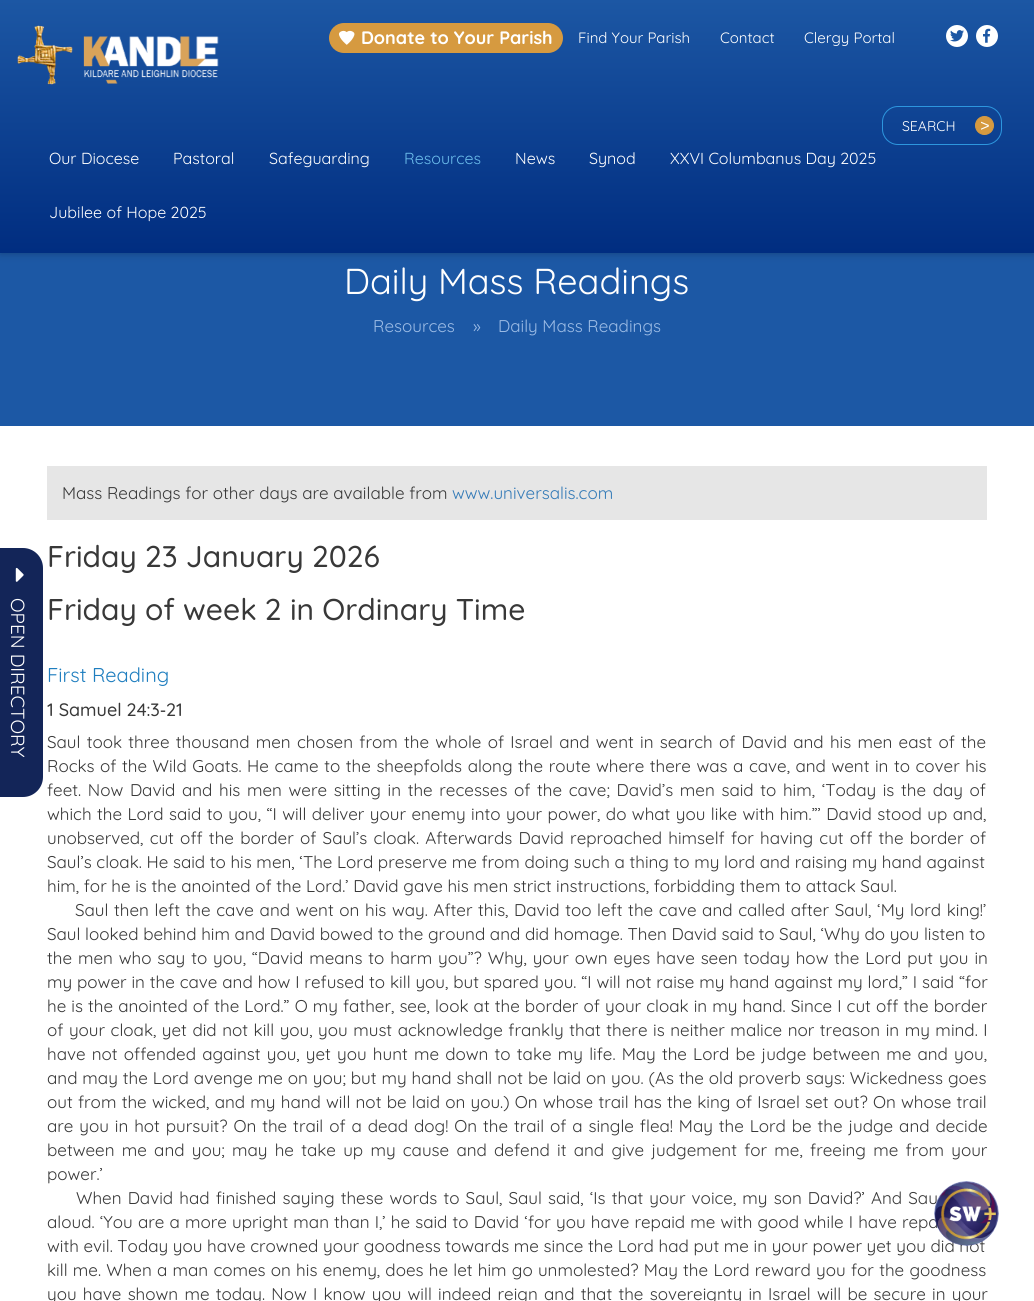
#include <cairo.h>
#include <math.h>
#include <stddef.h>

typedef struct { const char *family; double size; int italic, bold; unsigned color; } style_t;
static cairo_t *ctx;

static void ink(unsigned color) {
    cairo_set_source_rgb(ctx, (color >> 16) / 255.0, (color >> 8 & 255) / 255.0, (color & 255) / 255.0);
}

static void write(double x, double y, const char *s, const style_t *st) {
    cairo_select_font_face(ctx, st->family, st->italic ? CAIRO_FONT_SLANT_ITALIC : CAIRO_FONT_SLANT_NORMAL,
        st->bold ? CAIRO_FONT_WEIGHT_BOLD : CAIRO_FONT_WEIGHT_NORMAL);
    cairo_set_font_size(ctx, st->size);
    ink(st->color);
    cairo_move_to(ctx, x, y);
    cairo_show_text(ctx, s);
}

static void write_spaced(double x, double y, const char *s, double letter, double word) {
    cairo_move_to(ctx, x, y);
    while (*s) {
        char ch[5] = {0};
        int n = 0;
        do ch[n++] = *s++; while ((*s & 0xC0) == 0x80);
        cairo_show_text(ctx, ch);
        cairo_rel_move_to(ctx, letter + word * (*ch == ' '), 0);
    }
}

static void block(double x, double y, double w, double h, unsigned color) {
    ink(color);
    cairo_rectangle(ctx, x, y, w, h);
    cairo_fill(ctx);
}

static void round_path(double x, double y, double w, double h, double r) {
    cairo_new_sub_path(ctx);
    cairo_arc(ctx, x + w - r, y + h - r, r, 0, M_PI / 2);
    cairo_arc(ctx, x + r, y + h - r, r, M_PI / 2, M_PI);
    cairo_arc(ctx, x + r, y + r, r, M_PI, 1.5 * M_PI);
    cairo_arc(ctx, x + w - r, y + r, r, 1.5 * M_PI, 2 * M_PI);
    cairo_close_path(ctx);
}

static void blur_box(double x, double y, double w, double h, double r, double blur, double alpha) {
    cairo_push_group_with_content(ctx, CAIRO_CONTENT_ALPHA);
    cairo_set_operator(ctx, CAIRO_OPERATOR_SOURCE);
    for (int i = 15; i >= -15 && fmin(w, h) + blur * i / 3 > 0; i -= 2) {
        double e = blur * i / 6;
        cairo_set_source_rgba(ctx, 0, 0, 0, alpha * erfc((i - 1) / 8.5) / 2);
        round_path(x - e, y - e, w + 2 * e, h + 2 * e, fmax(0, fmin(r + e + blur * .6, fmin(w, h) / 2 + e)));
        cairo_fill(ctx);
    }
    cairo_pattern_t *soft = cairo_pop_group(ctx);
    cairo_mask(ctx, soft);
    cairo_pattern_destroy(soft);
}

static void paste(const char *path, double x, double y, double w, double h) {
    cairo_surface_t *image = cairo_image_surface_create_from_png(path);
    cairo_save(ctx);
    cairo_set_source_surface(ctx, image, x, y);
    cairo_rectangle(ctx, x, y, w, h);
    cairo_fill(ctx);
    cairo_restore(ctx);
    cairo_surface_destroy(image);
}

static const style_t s1 = {"Quicksand", 18, 0, 1, 0xffffff};
static const style_t s2 = {"Quicksand", 15, 0, 0, 0xffffff};
static const style_t s3 = {"Quicksand", 14, 0, 0, 0xffffff};
static const style_t s4 = {"Liberation Sans", 16, 1, 0, 0xffffff};
static const style_t s5 = {"Quicksand", 16, 0, 0, 0xffffff};
static const style_t s6 = {"Quicksand", 16, 0, 0, 0x6abbea};
static const style_t s7 = {"Quicksand", 19, 0, 0, 0xffffff};
static const style_t s8 = {"Quicksand", 36, 0, 0, 0xffffff};
static const style_t s9 = {"Quicksand", 17, 0, 0, 0x9bbbe5};
static const style_t s10 = {"Quicksand", 17, 0, 0, 0x383838};
static const style_t s11 = {"Quicksand", 17, 0, 0, 0x337ab7};
static const style_t s12 = {"Quicksand Medium", 30, 0, 0, 0x383838};
static const style_t s13 = {"Quicksand", 20, 0, 0, 0x1f7ebf};
static const style_t s14 = {"Quicksand Medium", 18, 0, 0, 0x383838};
static const style_t s15 = {"Liberation Sans", 18, 0, 0, 0x383838};

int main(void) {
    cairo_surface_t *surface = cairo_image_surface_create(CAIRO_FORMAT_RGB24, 1034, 1301);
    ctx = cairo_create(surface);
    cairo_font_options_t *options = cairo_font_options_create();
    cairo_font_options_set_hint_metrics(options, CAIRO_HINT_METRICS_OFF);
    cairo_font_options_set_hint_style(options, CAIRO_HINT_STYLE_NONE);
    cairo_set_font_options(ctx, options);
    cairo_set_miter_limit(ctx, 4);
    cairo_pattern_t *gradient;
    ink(0xffffff);
    cairo_paint(ctx);
    block(0, 253, 1034, 173, 0x1c58a5);
    ink(0x000000);
    blur_box(0, 0, 1034, 253, 0, 4.5, 0.27);
    gradient = cairo_pattern_create_linear(517, 0, 517, 253);
    cairo_pattern_add_color_stop_rgba(gradient, 0, 0.11, 0.341, 0.643, 1);
    cairo_pattern_add_color_stop_rgba(gradient, 1, 0, 0.176, 0.502, 1);
    cairo_set_source(ctx, gradient);
    cairo_pattern_destroy(gradient);
    cairo_rectangle(ctx, 0, 0, 1034, 253);
    cairo_fill(ctx);
    paste("pic1.png", 17, 25, 202, 60);
    ink(0xd69a40);
    round_path(329, 23, 234, 30, 15);
    cairo_fill(ctx);
    paste("pic2.png", 339, 30, 16, 15);
    write(361, 44, "Donate to Your Parish", &s1);
    write(578, 43, "Find Your Parish", &s2);
    write(720, 43, "Contact", &s2);
    write(804, 43, "Clergy Portal", &s2);
    cairo_new_path(ctx);
    cairo_arc(ctx, 957, 36, 11, 0, 2 * M_PI);
    cairo_fill(ctx);
    paste("pic3.png", 950, 30, 14, 12);
    cairo_arc(ctx, 987, 36, 11, 0, 2 * M_PI);
    cairo_fill(ctx);
    paste("pic4.png", 983, 28, 8, 15);
    round_path(882.5, 106.5, 119, 38, 15.5);
    ink(0x2d96de);
    cairo_set_line_width(ctx, 1);
    cairo_stroke(ctx);
    write(902, 131, "SEARCH", &s3);
    ink(0xd69a40);
    cairo_new_path(ctx);
    cairo_arc(ctx, 984.5, 125.5, 9, 0, 2 * M_PI);
    cairo_fill_preserve(ctx);
    cairo_stroke(ctx);
    write(980, 131, ">", &s4);
    write(49, 164, "Our Diocese", &s5);
    write(173, 164, "Pastoral", &s5);
    write(269, 164, "Safeguarding", &s5);
    write(404, 164, "Resources", &s6);
    write(515, 164, "News", &s5);
    write(589, 164, "Synod", &s5);
    write(670, 164, "XXVI Columbanus Day 2025", &s5);
    write(49, 218, "Jubilee of Hope 2025", &s5);
    ink(0x132558);
    cairo_new_path(ctx);
    cairo_move_to(ctx, 43, 568);
    cairo_line_to(ctx, 43, 777);
    cairo_curve_to(ctx, 43, 788, 34, 797, 23, 797);
    cairo_line_to(ctx, -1, 797);
    cairo_line_to(ctx, -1, 548);
    cairo_line_to(ctx, 23, 548);
    cairo_curve_to(ctx, 34, 548, 43, 557, 43, 568);
    cairo_close_path(ctx);
    cairo_fill(ctx);
    paste("pic5.png", 15, 567, 9, 15);
    cairo_save(ctx);
    cairo_translate(ctx, 11, 598);
    cairo_rotate(ctx, 90 * M_PI / 180);
    write(0, 0, "OPEN DIRECTORY", &s7);
    cairo_restore(ctx);
    write(344, 294, "Daily Mass Readings", &s8);
    write(373, 332, "Resources", &s9);
    write(473, 332, "»", &s9);
    write(498, 332, "Daily Mass Readings", &s9);
    block(47, 466, 940, 54, 0xe6e6e6);
    write(62, 499, "Mass Readings for other days are available from", &s10);
    write(452, 499, "www.universalis.com", &s11);
    write(47, 567, "Friday 23 January 2026", &s12);
    write(47, 620, "Friday of week 2 in Ordinary Time", &s12);
    write(47, 682, "First Reading", &s13);
    write(47, 716, "1 Samuel 24:3", &s14);
    write(160, 716, "‐", &s15);
    write(166, 716, "21", &s14);
    cairo_select_font_face(ctx, "Quicksand", CAIRO_FONT_SLANT_NORMAL, CAIRO_FONT_WEIGHT_NORMAL);
    cairo_set_font_size(ctx, 17);
    write_spaced(47, 748, "Saul took three thousand men chosen from the whole of Israel and went in search of David and his men east of the", 0, 1.6);
    write_spaced(47, 772, "Rocks of the Wild Goats. He came to the sheepfolds along the route where there was a cave, and went in to cover his", 0, 0.9);
    write_spaced(47, 796, "feet. Now David and his men were sitting in the recesses of the cave; David’s men said to him, ‘Today is the day of", 0, 2);
    write_spaced(47, 820, "which the Lord said to you, “I will deliver your enemy into your power, do what you like with him.”’ David stood up and,", 0, 0.8);
    write_spaced(47, 844, "unobserved, cut off the border of Saul’s cloak. Afterwards David reproached himself for having cut off the border of", 0, 1.6);
    write(47, 868, "Saul’s cloak. He said to his men, ‘The Lord preserve me from doing such a thing to my lord and raising my hand against", &s10);
    write(47, 892, "him, for he is the anointed of the Lord.’ David gave his men strict instructions, forbidding them to attack Saul.", &s10);
    write_spaced(75, 916, "Saul then left the cave and went on his way. After this, David too left the cave and called after Saul, ‘My lord king!’", 0, 1);
    write(47, 940, "Saul looked behind him and David bowed to the ground and did homage. Then David said to Saul, ‘Why do you listen to", &s10);
    write_spaced(47, 964, "the men who say to you, “David means to harm you”? Why, your own eyes have seen today how the Lord put you in", 0, 1.25);
    write_spaced(47, 988, "my power in the cave and how I refused to kill you, but spared you. “I will not raise my hand against my lord,” I said “for", 0, 0.25);
    write_spaced(47, 1012, "he is the anointed of the Lord.” O my father, see, look at the border of your cloak in my hand. Since I cut off the border", 0, 0.45);
    write_spaced(47, 1036, "of your cloak, yet did not kill you, you must acknowledge frankly that there is neither malice nor treason in my mind. I", 0, 0.9);
    write_spaced(47, 1060, "have not offended against you, yet you hunt me down to take my life. May the Lord be judge between me and you,", 0, 1.55);
    write_spaced(47, 1084, "and may the Lord avenge me on you; but my hand shall not be laid on you. (As the old proverb says: Wickedness goes", 0, 0.3);
    write_spaced(47, 1108, "out from the wicked, and my hand will not be laid on you.) On whose trail has the king of Israel set out? On whose trail", 0, 0.6);
    write_spaced(47, 1132, "are you in hot pursuit? On the trail of a dead dog! On the trail of a single flea! May the Lord be the judge and decide", 0, 1.25);
    write_spaced(47, 1156, "between me and you; may he take up my cause and defend it and give judgement for me, freeing me from your", 0, 2.6);
    write(47, 1180, "power.’", &s10);
    write_spaced(76, 1204, "When David had finished saying these words to Saul, Saul said, ‘Is that your voice, my son David?’ And Sau", 0, 1.5);
    write_spaced(47, 1228, "aloud. ‘You are a more upright man than I,’ he said to David ‘for you have repaid me with good while I have repa", 0, 0.5);
    write(47, 1252, "with evil. Today you have crowned your goodness towards me since the Lord had put me in your power yet you did not", &s10);
    write_spaced(47, 1276, "kill me. When a man comes on his enemy, does he let him go unmolested? May the Lord reward you for the goodness", 0, 0.6);
    write_spaced(47, 1300, "you have shown me today. Now I know you will indeed reign and that the sovereignty in Israel will be secure in your", 0, 1.6);
    paste("pic6.png", 934, 1181, 65, 65);
    cairo_surface_write_to_png(surface, "screenshot.png");
    cairo_font_options_destroy(options);
    cairo_destroy(ctx);
    cairo_surface_destroy(surface);
    return 0;
}
